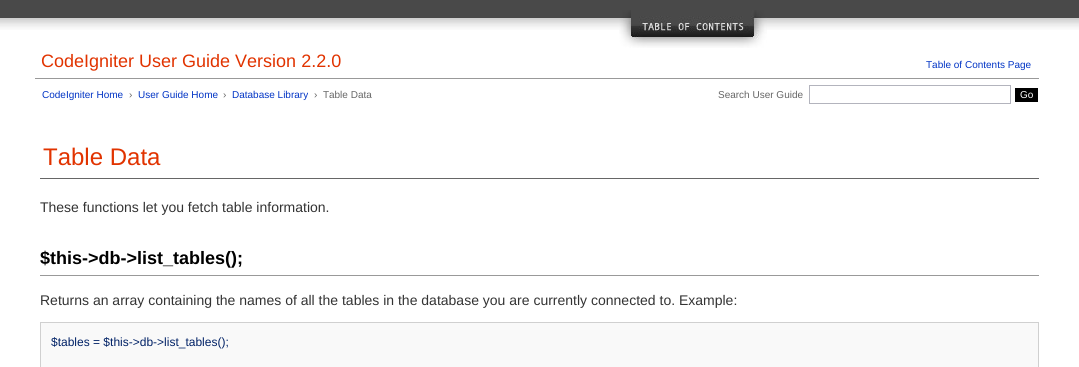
#include <cairo.h>
#include <math.h>
#include <stddef.h>

typedef struct { const char *family; double size; int italic, bold; unsigned color; } style_t;
static cairo_t *ctx;

static void ink(unsigned color) {
    cairo_set_source_rgb(ctx, (color >> 16) / 255.0, (color >> 8 & 255) / 255.0, (color & 255) / 255.0);
}

static void write(double x, double y, const char *s, const style_t *st) {
    cairo_select_font_face(ctx, st->family, st->italic ? CAIRO_FONT_SLANT_ITALIC : CAIRO_FONT_SLANT_NORMAL,
        st->bold ? CAIRO_FONT_WEIGHT_BOLD : CAIRO_FONT_WEIGHT_NORMAL);
    cairo_set_font_size(ctx, st->size);
    ink(st->color);
    cairo_move_to(ctx, x, y);
    cairo_show_text(ctx, s);
}

static void block(double x, double y, double w, double h, unsigned color) {
    ink(color);
    cairo_rectangle(ctx, x, y, w, h);
    cairo_fill(ctx);
}

static void paste(const char *path, double x, double y, double w, double h) {
    cairo_surface_t *image = cairo_image_surface_create_from_png(path);
    cairo_save(ctx);
    cairo_set_source_surface(ctx, image, x, y);
    cairo_rectangle(ctx, x, y, w, h);
    cairo_fill(ctx);
    cairo_restore(ctx);
    cairo_surface_destroy(image);
}

static const style_t s1 = {"Liberation Sans", 18, 0, 0, 0xe13300};
static const style_t s2 = {"Liberation Sans", 10, 0, 0, 0x0134c5};
static const style_t s3 = {"Liberation Sans", 10, 0, 0, 0x666666};
static const style_t s4 = {"Liberation Sans", 10, 0, 0, 0xffffff};
static const style_t s5 = {"Liberation Sans", 24, 0, 0, 0xe13300};
static const style_t s6 = {"Liberation Sans", 14, 0, 0, 0x333333};
static const style_t s7 = {"Liberation Sans", 18, 0, 1, 0x000000};
static const style_t s8 = {"Liberation Sans", 12, 0, 0, 0x002166};

int main(void) {
    cairo_surface_t *surface = cairo_image_surface_create(CAIRO_FORMAT_RGB24, 1079, 367);
    ctx = cairo_create(surface);
    cairo_font_options_t *options = cairo_font_options_create();
    cairo_font_options_set_hint_metrics(options, CAIRO_HINT_METRICS_OFF);
    cairo_font_options_set_hint_style(options, CAIRO_HINT_STYLE_NONE);
    cairo_set_font_options(ctx, options);
    cairo_set_miter_limit(ctx, 4);
    ink(0xffffff);
    cairo_paint(ctx);
    block(0, 0, 1079, 8, 0x494949);
    paste("pic1.png", 0, 8, 1079, 22);
    paste("pic2.png", 619, 10, 148, 38);
    block(35, 78, 1004, 1, 0x999999);
    write(41, 67, "CodeIgniter User Guide Version 2.2.0", &s1);
    write(926, 68, "Table of Contents Page", &s2);
    write(42, 98, "CodeIgniter Home", &s2);
    write(129, 98, "›", &s3);
    write(138, 98, "User Guide Home", &s2);
    write(223, 98, "›", &s3);
    write(232, 98, "Database Library", &s2);
    write(314, 98, "›  Table Data", &s3);
    write(718, 98, "Search User Guide", &s3);
    cairo_rectangle(ctx, 809.5, 85.5, 201, 18);
    ink(0xb3b4bd);
    cairo_set_line_width(ctx, 1);
    cairo_stroke(ctx);
    block(1015, 88, 23, 14, 0x000000);
    write(1020, 98, "Go", &s4);
    block(40, 178, 999, 1, 0x666666);
    write(43, 165, "Table Data", &s5);
    write(40, 212, "These functions let you fetch table information.", &s6);
    block(40, 275, 999, 1, 0x999999);
    write(40, 264, "$this->db->list_tables();", &s7);
    write(40, 305, "Returns an array containing the names of all the tables in the database you are currently connected to. Example:", &s6);
    ink(0xf9f9f9);
    cairo_rectangle(ctx, 40.5, 322.5, 998, 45);
    cairo_fill_preserve(ctx);
    ink(0xd0d0d0);
    cairo_stroke(ctx);
    write(51, 346, "$tables = $this->db->list_tables();", &s8);
    cairo_surface_write_to_png(surface, "screenshot.png");
    cairo_font_options_destroy(options);
    cairo_destroy(ctx);
    cairo_surface_destroy(surface);
    return 0;
}
